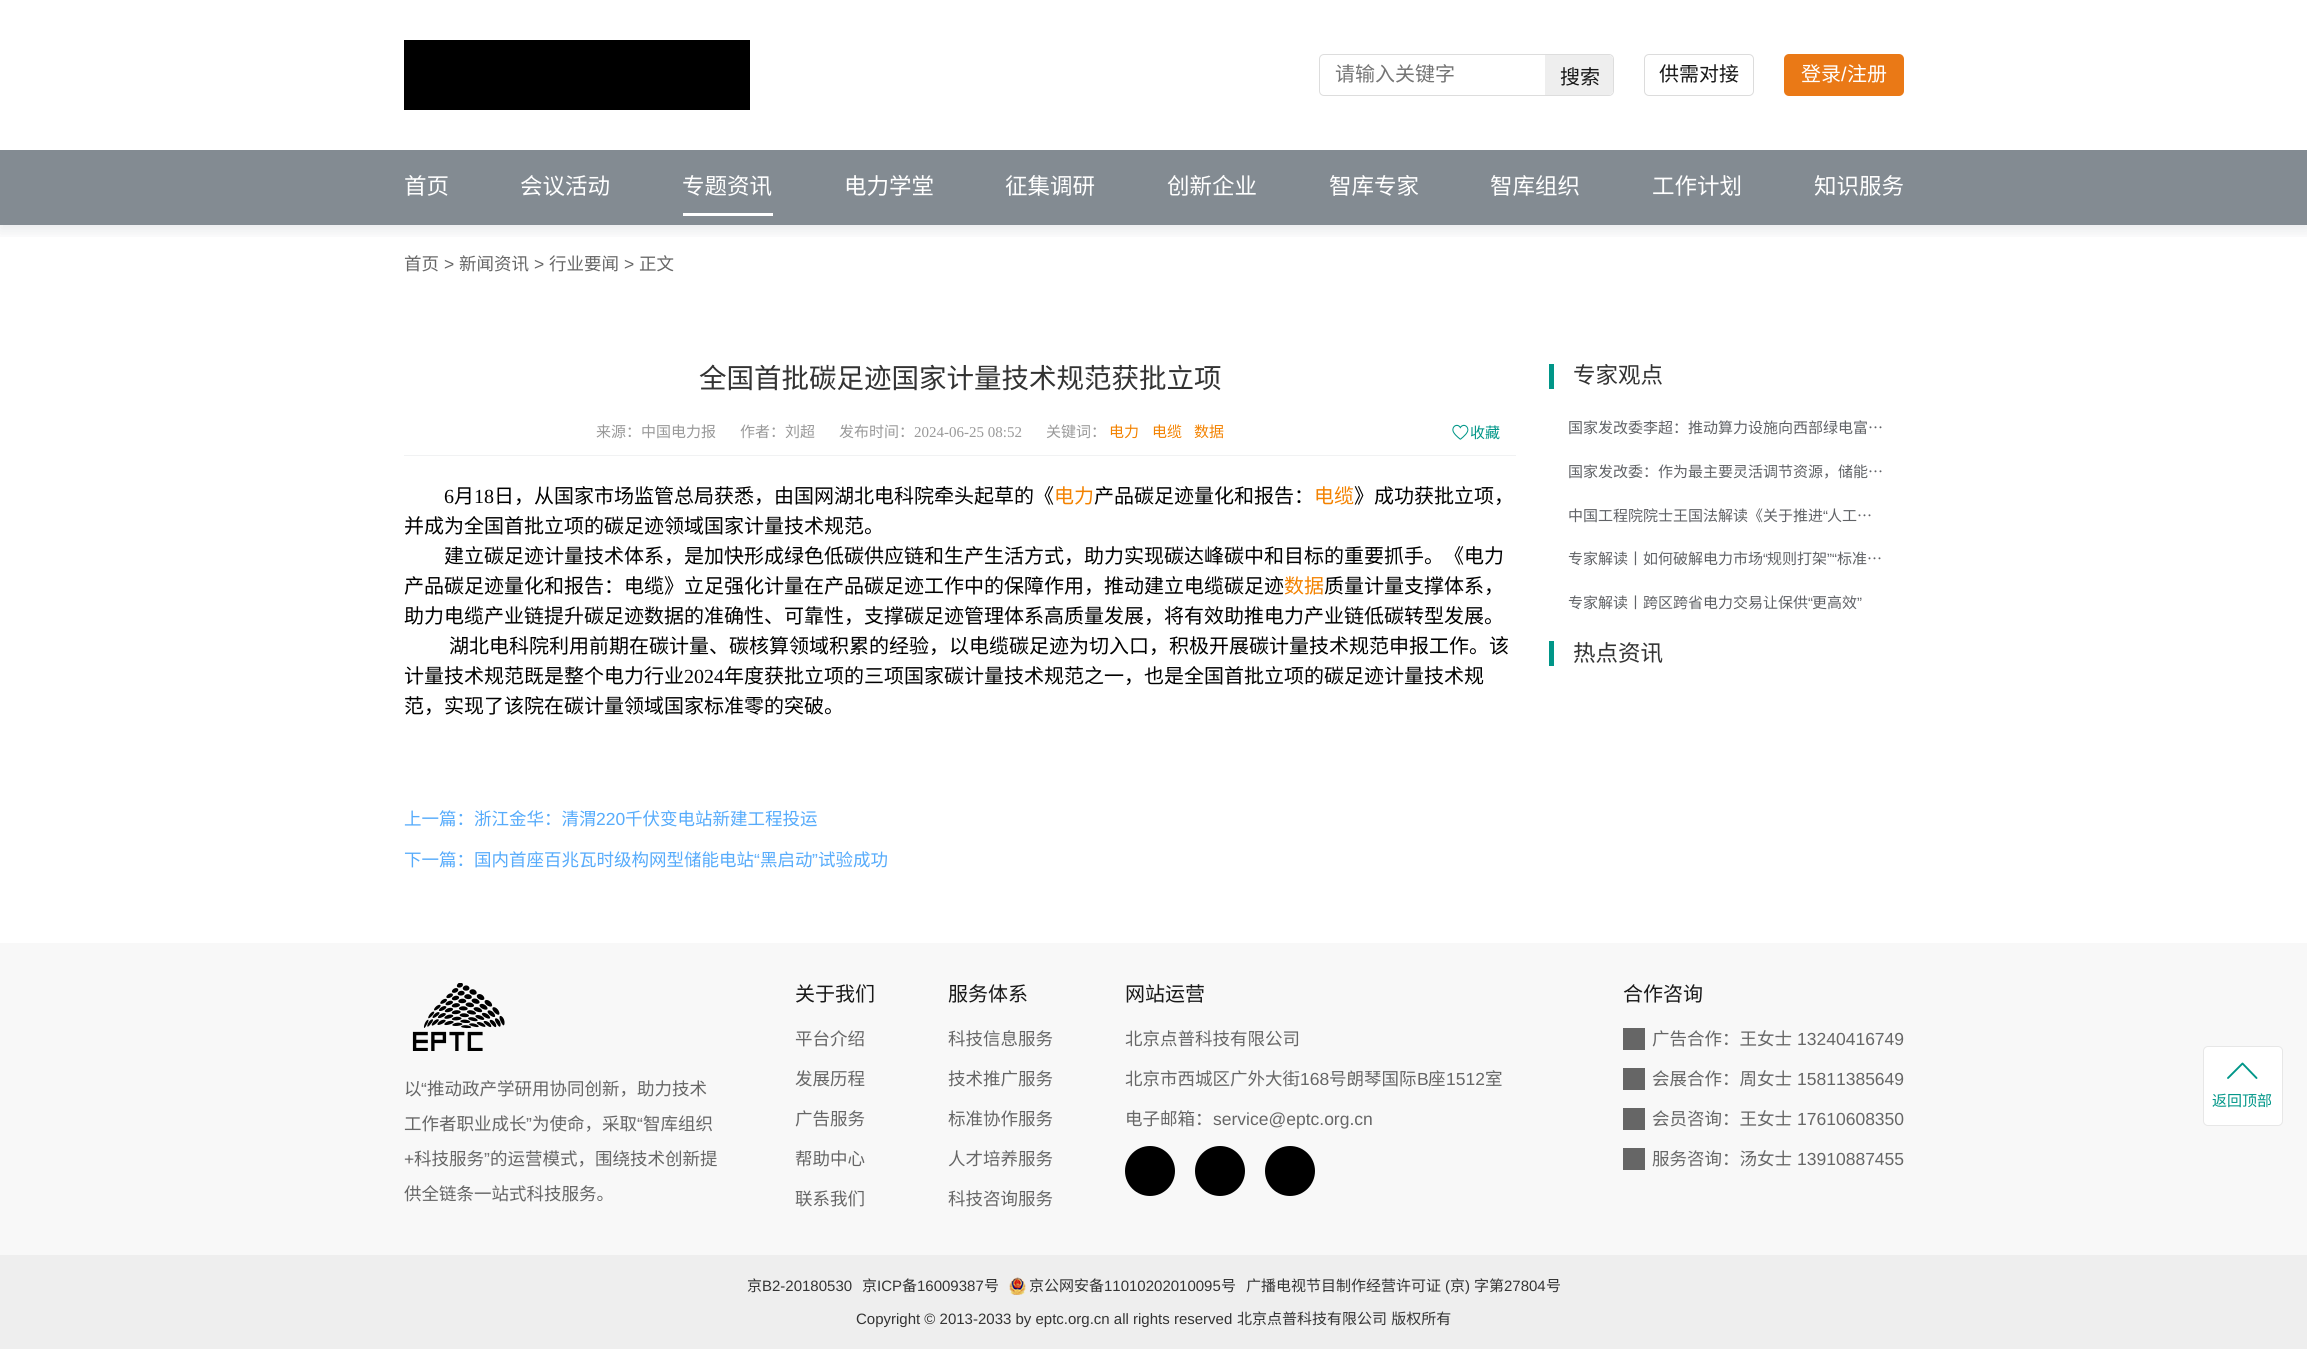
#include <cairo.h>
#include <math.h>
#include <stddef.h>

typedef struct { const char *family; double size; int italic, bold; unsigned color; } style_t;
static cairo_t *ctx;

static void ink(unsigned color) {
    cairo_set_source_rgb(ctx, (color >> 16) / 255.0, (color >> 8 & 255) / 255.0, (color & 255) / 255.0);
}

static void write(double x, double y, const char *s, const style_t *st) {
    cairo_select_font_face(ctx, st->family, st->italic ? CAIRO_FONT_SLANT_ITALIC : CAIRO_FONT_SLANT_NORMAL,
        st->bold ? CAIRO_FONT_WEIGHT_BOLD : CAIRO_FONT_WEIGHT_NORMAL);
    cairo_set_font_size(ctx, st->size);
    ink(st->color);
    cairo_move_to(ctx, x, y);
    cairo_show_text(ctx, s);
}

static void write_spaced(double x, double y, const char *s, double letter, double word) {
    cairo_move_to(ctx, x, y);
    while (*s) {
        char ch[5] = {0};
        int n = 0;
        do ch[n++] = *s++; while ((*s & 0xC0) == 0x80);
        cairo_show_text(ctx, ch);
        cairo_rel_move_to(ctx, letter + word * (*ch == ' '), 0);
    }
}

static void block(double x, double y, double w, double h, unsigned color) {
    ink(color);
    cairo_rectangle(ctx, x, y, w, h);
    cairo_fill(ctx);
}

static void round_path(double x, double y, double w, double h, double r) {
    cairo_new_sub_path(ctx);
    cairo_arc(ctx, x + w - r, y + h - r, r, 0, M_PI / 2);
    cairo_arc(ctx, x + r, y + h - r, r, M_PI / 2, M_PI);
    cairo_arc(ctx, x + r, y + r, r, M_PI, 1.5 * M_PI);
    cairo_arc(ctx, x + w - r, y + r, r, 1.5 * M_PI, 2 * M_PI);
    cairo_close_path(ctx);
}

static void blur_box(double x, double y, double w, double h, double r, double blur, double alpha) {
    cairo_push_group_with_content(ctx, CAIRO_CONTENT_ALPHA);
    cairo_set_operator(ctx, CAIRO_OPERATOR_SOURCE);
    for (int i = 15; i >= -15 && fmin(w, h) + blur * i / 3 > 0; i -= 2) {
        double e = blur * i / 6;
        cairo_set_source_rgba(ctx, 0, 0, 0, alpha * erfc((i - 1) / 8.5) / 2);
        round_path(x - e, y - e, w + 2 * e, h + 2 * e, fmax(0, fmin(r + e + blur * .6, fmin(w, h) / 2 + e)));
        cairo_fill(ctx);
    }
    cairo_pattern_t *soft = cairo_pop_group(ctx);
    cairo_mask(ctx, soft);
    cairo_pattern_destroy(soft);
}

static void paste(const char *path, double x, double y, double w, double h) {
    cairo_surface_t *image = cairo_image_surface_create_from_png(path);
    cairo_save(ctx);
    cairo_set_source_surface(ctx, image, x, y);
    cairo_rectangle(ctx, x, y, w, h);
    cairo_fill(ctx);
    cairo_restore(ctx);
    cairo_surface_destroy(image);
}

static const style_t s1 = {"Noto Sans CJK SC", 20, 0, 0, 0x757575};
static const style_t s2 = {"Noto Sans CJK SC", 20, 0, 0, 0x181818};
static const style_t s3 = {"Noto Sans CJK SC", 20, 0, 0, 0xffffff};
static const style_t s4 = {"Liberation Sans", 20, 0, 0, 0xffffff};
static const style_t s5 = {"Noto Sans CJK SC", 22.5, 0, 0, 0xffffff};
static const style_t s6 = {"Noto Sans CJK SC", 17.5, 0, 0, 0x666666};
static const style_t s7 = {"Liberation Sans", 17.5, 0, 0, 0x666666};
static const style_t s8 = {"Noto Sans CJK SC", 27.5, 0, 0, 0x333333};
static const style_t s9 = {"Noto Sans CJK SC", 15, 0, 0, 0x999999};
static const style_t s10 = {"Liberation Serif", 15, 0, 0, 0x999999};
static const style_t s11 = {"Noto Sans CJK SC", 15, 0, 0, 0xf38200};
static const style_t s12 = {"Noto Sans CJK SC", 15, 0, 0, 0x009688};
static const style_t s13 = {"Liberation Serif", 20, 0, 0, 0x000000};
static const style_t s14 = {"Noto Sans CJK SC", 20, 0, 0, 0x000000};
static const style_t s15 = {"Noto Sans CJK SC", 20, 0, 0, 0xf38200};
static const style_t s16 = {"Noto Sans CJK SC", 17.5, 0, 0, 0x56abfb};
static const style_t s17 = {"Liberation Sans", 17.5, 0, 0, 0x56abfb};
static const style_t s18 = {"Noto Sans CJK SC", 22.5, 0, 0, 0x333333};
static const style_t s19 = {"Noto Sans CJK SC", 15, 0, 0, 0x606266};
static const style_t s20 = {"Liberation Sans", 15, 0, 0, 0x606266};
static const style_t s21 = {"Noto Sans CJK SC", 15, 0, 0, 0x333333};
static const style_t s22 = {"Liberation Sans", 15, 0, 0, 0x333333};

int main(void) {
    cairo_surface_t *surface = cairo_image_surface_create(CAIRO_FORMAT_RGB24, 2307, 1349);
    ctx = cairo_create(surface);
    cairo_font_options_t *options = cairo_font_options_create();
    cairo_font_options_set_hint_metrics(options, CAIRO_HINT_METRICS_OFF);
    cairo_font_options_set_hint_style(options, CAIRO_HINT_STYLE_NONE);
    cairo_set_font_options(ctx, options);
    cairo_set_miter_limit(ctx, 4);
    ink(0xffffff);
    cairo_paint(ctx);
    cairo_save(ctx);
    cairo_rectangle(ctx, 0, 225, 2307, 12);
    cairo_clip(ctx);
    ink(0x000f29);
    blur_box(-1, 4, 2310, 227, 0, 7.5, 0.09);
    cairo_restore(ctx);
    block(404, 40, 346, 70, 0x000000);
    round_path(1319.5, 54.5, 294, 41, 4.5);
    ink(0xdddddd);
    cairo_set_line_width(ctx, 1);
    cairo_stroke(ctx);
    write(1335, 81, "请输入关键字", &s1);
    ink(0xeeeeee);
    cairo_new_path(ctx);
    cairo_move_to(ctx, 1545, 55);
    cairo_line_to(ctx, 1609, 55);
    cairo_curve_to(ctx, 1611, 55, 1613, 57, 1613, 59);
    cairo_line_to(ctx, 1613, 91);
    cairo_curve_to(ctx, 1613, 93, 1611, 95, 1609, 95);
    cairo_line_to(ctx, 1545, 95);
    cairo_close_path(ctx);
    cairo_fill(ctx);
    write(1560, 84, "搜索", &s2);
    round_path(1644.5, 54.5, 109, 41, 4.5);
    ink(0xdcdcdc);
    cairo_stroke(ctx);
    write(1659, 81, "供需对接", &s2);
    ink(0xea7916);
    round_path(1784, 54, 120, 42, 5);
    cairo_fill(ctx);
    write(1801, 81, "登录", &s3);
    write(1841, 81, "/", &s4);
    write(1847, 81, "注册", &s3);
    block(0, 150, 2307, 75, 0x838b92);
    write(404, 194, "首页", &s5);
    write(520, 194, "会议活动", &s5);
    write(682, 194, "专题资讯", &s5);
    block(683, 213, 90, 3, 0xffffff);
    write(844, 194, "电力学堂", &s5);
    write(1005, 194, "征集调研", &s5);
    write(1167, 194, "创新企业", &s5);
    write(1329, 194, "智库专家", &s5);
    write(1490, 194, "智库组织", &s5);
    write(1652, 194, "工作计划", &s5);
    write(1814, 194, "知识服务", &s5);
    write(404, 270, "首页", &s6);
    write(444, 270, ">", &s7);
    write(459, 270, "新闻资讯", &s6);
    write(534, 270, ">", &s7);
    write(549, 270, "行业要闻", &s6);
    write(624, 270, ">", &s7);
    write(639, 270, "正文", &s6);
    block(404, 455, 1112, 1, 0xf1f2f3);
    write(699, 388, "全国首批碳足迹国家计量技术规范获批立项", &s8);
    write(596, 437, "来源：中国电力报", &s9);
    write(740, 437, "作者：刘超", &s9);
    write(839, 437, "发布时间：", &s9);
    write(914, 437, "2024-06-25 08:52", &s10);
    write(1046, 437, "关键词：", &s9);
    write(1109, 437, "电力", &s11);
    write(1152, 437, "电缆", &s11);
    write(1194, 437, "数据", &s11);
    paste("pic1.png", 1452, 424, 17, 16);
    write(1470, 438, "收藏", &s12);
    write(444, 503, "6", &s13);
    write(454, 503, "月", &s14);
    write(474, 503, "18", &s13);
    write(494, 503, "日，从国家市场监管总局获悉，由国网湖北电科院牵头起草的《", &s14);
    write(1054, 503, "电力", &s15);
    write(1094, 503, "产品碳足迹量化和报告：", &s14);
    write(1314, 503, "电缆", &s15);
    write(1354, 503, "》成功获批立项，", &s14);
    write(404, 533, "并成为全国首批立项的碳足迹领域国家计量技术规范。", &s14);
    write(444, 563, "建立碳足迹计量技术体系，是加快形成绿色低碳供应链和生产生活方式，助力实现碳达峰碳中和目标的重要抓手。《电力", &s14);
    write(404, 593, "产品碳足迹量化和报告：电缆》立足强化计量在产品碳足迹工作中的保障作用，推动建立电缆碳足迹", &s14);
    write(1284, 593, "数据", &s15);
    write(1324, 593, "质量计量支撑体系，", &s14);
    write(404, 623, "助力电缆产业链提升碳足迹数据的准确性、可靠性，支撑碳足迹管理体系高质量发展，将有效助推电力产业链低碳转型发展。", &s14);
    write(449, 653, "湖北电科院利用前期在碳计量、碳核算领域积累的经验，以电缆碳足迹为切入口，积极开展碳计量技术规范申报工作。该", &s14);
    write(404, 683, "计量技术规范既是整个电力行业", &s14);
    write(684, 683, "2024", &s13);
    write(724, 683, "年度获批立项的三项国家碳计量技术规范之一，也是全国首批立项的碳足迹计量技术规", &s14);
    write(404, 713, "范，实现了该院在碳计量领域国家标准零的突破。", &s14);
    write(404, 825, "上一篇：浙江金华：清渭", &s16);
    write(596, 825, "220", &s17);
    write(625, 825, "千伏变电站新建工程投运", &s16);
    write(404, 866, "下一篇：国内首座百兆瓦时级构网型储能电站", &s16);
    write(754, 866, "“", &s17);
    write(760, 866, "黑启动", &s16);
    write(812, 866, "”", &s17);
    write(818, 866, "试验成功", &s16);
    block(1549, 364, 5, 25, 0x009688);
    write(1573, 383, "专家观点", &s18);
    cairo_set_font_size(ctx, 15);
    ink(0x606266);
    write_spaced(1568, 433, "国家发改委李超：推动算力设施向西部绿电富…", 0, 1);
    write(1568, 477, "国家发改委：作为最主要灵活调节资源，储能…", &s19);
    write(1568, 521, "中国工程院院士王国法解读《关于推进", &s19);
    write(1823, 521, "“", &s20);
    write(1827, 521, "人工…", &s19);
    write(1568, 564, "专家解读丨如何破解电力市场", &s19);
    write(1763, 564, "“", &s20);
    write(1767, 564, "规则打架", &s19);
    write(1827, 564, "”“", &s20);
    write(1837, 564, "标准…", &s19);
    write(1568, 608, "专家解读丨跨区跨省电力交易让保供", &s19);
    write(1808, 608, "“", &s20);
    write(1812, 608, "更高效", &s19);
    write(1857, 608, "”", &s20);
    block(1549, 641, 5, 25, 0x009688);
    write(1573, 661, "热点资讯", &s18);
    block(0, 943, 2307, 312, 0xf8f8f8);
    ink(0xffffff);
    round_path(2203.5, 1046.5, 79, 79, 4.5);
    cairo_fill_preserve(ctx);
    ink(0xe7e7e7);
    cairo_stroke(ctx);
    cairo_new_path(ctx);
    cairo_move_to(ctx, 2228, 1078);
    cairo_line_to(ctx, 2242.5, 1063.5);
    cairo_line_to(ctx, 2256.5, 1078);
    ink(0x009688);
    cairo_set_line_width(ctx, 1.9);
    cairo_set_line_cap(ctx, CAIRO_LINE_CAP_ROUND);
    cairo_set_line_join(ctx, CAIRO_LINE_JOIN_ROUND);
    cairo_stroke(ctx);
    write(2212, 1106, "返回顶部", &s12);
    paste("pic2.png", 412, 983, 93, 68);
    write(404, 1095, "以", &s6);
    write(421, 1095, "“", &s7);
    write(427, 1095, "推动政产学研用协同创新，助力技术", &s6);
    write(404, 1130, "工作者职业成长", &s6);
    write(526, 1130, "”", &s7);
    write(532, 1130, "为使命，采取", &s6);
    write(637, 1130, "“", &s7);
    write(643, 1130, "智库组织", &s6);
    write(404, 1165, "+", &s7);
    write(414, 1165, "科技服务", &s6);
    write(484, 1165, "”", &s7);
    write(490, 1165, "的运营模式，围绕技术创新提", &s6);
    write(404, 1200, "供全链条一站式科技服务。", &s6);
    write(795, 1001, "关于我们", &s2);
    write(795, 1045, "平台介绍", &s6);
    write(795, 1085, "发展历程", &s6);
    write(795, 1125, "广告服务", &s6);
    write(795, 1165, "帮助中心", &s6);
    write(795, 1205, "联系我们", &s6);
    write(948, 1001, "服务体系", &s2);
    write(948, 1045, "科技信息服务", &s6);
    write(948, 1085, "技术推广服务", &s6);
    write(948, 1125, "标准协作服务", &s6);
    write(948, 1165, "人才培养服务", &s6);
    write(948, 1205, "科技咨询服务", &s6);
    write(1125, 1001, "网站运营", &s2);
    write(1125, 1045, "北京点普科技有限公司", &s6);
    write(1125, 1085, "北京市西城区广外大街", &s6);
    write(1300, 1085, "168", &s7);
    write(1329, 1085, "号朗琴国际", &s6);
    write(1417, 1085, "B", &s7);
    write(1428, 1085, "座", &s6);
    write(1446, 1085, "1512", &s7);
    write(1485, 1085, "室", &s6);
    write(1125, 1125, "电子邮箱：", &s6);
    write(1213, 1125, "service@eptc.org.cn", &s7);
    paste("pic3.png", 1125, 1146, 50, 50);
    paste("pic3.png", 1195, 1146, 50, 50);
    paste("pic3.png", 1265, 1146, 50, 50);
    write(1623, 1001, "合作咨询", &s2);
    block(1623, 1028, 22, 22, 0x666666);
    write(1652, 1045, "广告合作：王女士", &s6);
    write(1797, 1045, "13240416749", &s7);
    block(1623, 1068, 22, 22, 0x666666);
    write(1652, 1085, "会展合作：周女士", &s6);
    write(1797, 1085, "15811385649", &s7);
    block(1623, 1108, 22, 22, 0x666666);
    write(1652, 1125, "会员咨询：王女士", &s6);
    write(1797, 1125, "17610608350", &s7);
    block(1623, 1148, 22, 22, 0x666666);
    write(1652, 1165, "服务咨询：汤女士", &s6);
    write(1797, 1165, "13910887455", &s7);
    block(0, 1255, 2307, 94, 0xeeeeee);
    write(747, 1291, "京", &s21);
    write(762, 1291, "B2-20180530", &s22);
    write(862, 1291, "京", &s21);
    write(877, 1291, "ICP", &s22);
    write(902, 1291, "备", &s21);
    write(917, 1291, "16009387", &s22);
    write(984, 1291, "号", &s21);
    paste("pic4.png", 1009, 1277, 17, 18);
    write(1029, 1291, "京公网安备", &s21);
    write(1104, 1291, "11010202010095", &s22);
    write(1221, 1291, "号", &s21);
    write(1246, 1291, "广播电视节目制作经营许可证", &s21);
    write(1445, 1291, "(", &s22);
    write(1450, 1291, "京", &s21);
    write(1465, 1291, ")", &s22);
    write(1474, 1291, "字第", &s21);
    write(1504, 1291, "27804", &s22);
    write(1546, 1291, "号", &s21);
    write(856, 1324, "Copyright © 2013-2033 by eptc.org.cn all rights reserved", &s22);
    cairo_select_font_face(ctx, "Noto Sans CJK SC", CAIRO_FONT_SLANT_NORMAL, CAIRO_FONT_WEIGHT_NORMAL);
    write_spaced(1237, 1324, "北京点普科技有限公司 版权所有", 0, 1);
    cairo_surface_write_to_png(surface, "screenshot.png");
    cairo_font_options_destroy(options);
    cairo_destroy(ctx);
    cairo_surface_destroy(surface);
    return 0;
}
